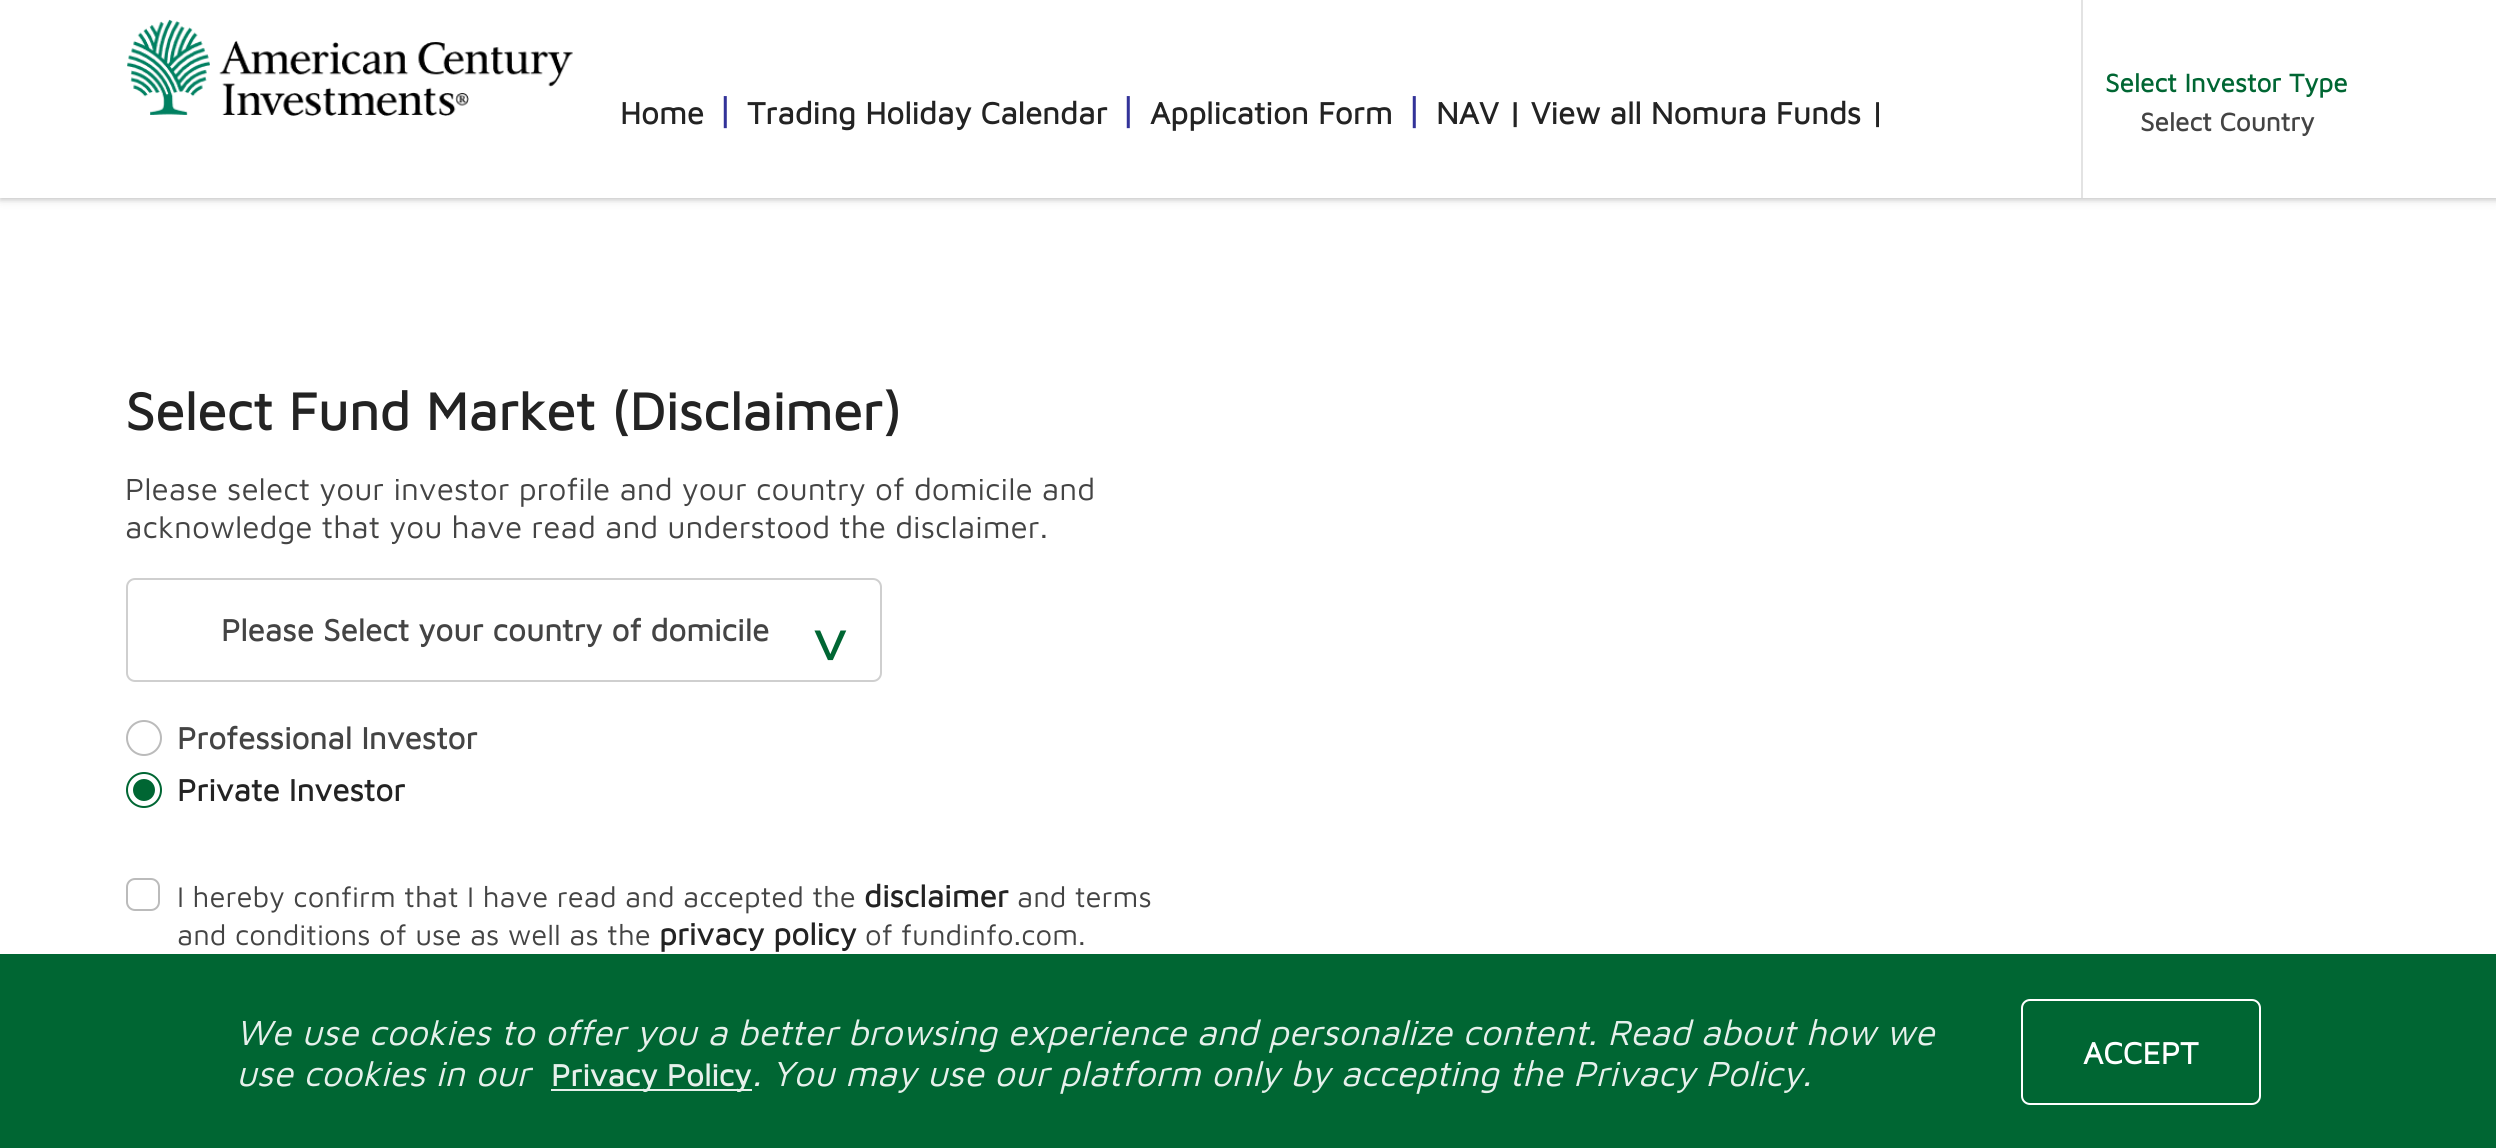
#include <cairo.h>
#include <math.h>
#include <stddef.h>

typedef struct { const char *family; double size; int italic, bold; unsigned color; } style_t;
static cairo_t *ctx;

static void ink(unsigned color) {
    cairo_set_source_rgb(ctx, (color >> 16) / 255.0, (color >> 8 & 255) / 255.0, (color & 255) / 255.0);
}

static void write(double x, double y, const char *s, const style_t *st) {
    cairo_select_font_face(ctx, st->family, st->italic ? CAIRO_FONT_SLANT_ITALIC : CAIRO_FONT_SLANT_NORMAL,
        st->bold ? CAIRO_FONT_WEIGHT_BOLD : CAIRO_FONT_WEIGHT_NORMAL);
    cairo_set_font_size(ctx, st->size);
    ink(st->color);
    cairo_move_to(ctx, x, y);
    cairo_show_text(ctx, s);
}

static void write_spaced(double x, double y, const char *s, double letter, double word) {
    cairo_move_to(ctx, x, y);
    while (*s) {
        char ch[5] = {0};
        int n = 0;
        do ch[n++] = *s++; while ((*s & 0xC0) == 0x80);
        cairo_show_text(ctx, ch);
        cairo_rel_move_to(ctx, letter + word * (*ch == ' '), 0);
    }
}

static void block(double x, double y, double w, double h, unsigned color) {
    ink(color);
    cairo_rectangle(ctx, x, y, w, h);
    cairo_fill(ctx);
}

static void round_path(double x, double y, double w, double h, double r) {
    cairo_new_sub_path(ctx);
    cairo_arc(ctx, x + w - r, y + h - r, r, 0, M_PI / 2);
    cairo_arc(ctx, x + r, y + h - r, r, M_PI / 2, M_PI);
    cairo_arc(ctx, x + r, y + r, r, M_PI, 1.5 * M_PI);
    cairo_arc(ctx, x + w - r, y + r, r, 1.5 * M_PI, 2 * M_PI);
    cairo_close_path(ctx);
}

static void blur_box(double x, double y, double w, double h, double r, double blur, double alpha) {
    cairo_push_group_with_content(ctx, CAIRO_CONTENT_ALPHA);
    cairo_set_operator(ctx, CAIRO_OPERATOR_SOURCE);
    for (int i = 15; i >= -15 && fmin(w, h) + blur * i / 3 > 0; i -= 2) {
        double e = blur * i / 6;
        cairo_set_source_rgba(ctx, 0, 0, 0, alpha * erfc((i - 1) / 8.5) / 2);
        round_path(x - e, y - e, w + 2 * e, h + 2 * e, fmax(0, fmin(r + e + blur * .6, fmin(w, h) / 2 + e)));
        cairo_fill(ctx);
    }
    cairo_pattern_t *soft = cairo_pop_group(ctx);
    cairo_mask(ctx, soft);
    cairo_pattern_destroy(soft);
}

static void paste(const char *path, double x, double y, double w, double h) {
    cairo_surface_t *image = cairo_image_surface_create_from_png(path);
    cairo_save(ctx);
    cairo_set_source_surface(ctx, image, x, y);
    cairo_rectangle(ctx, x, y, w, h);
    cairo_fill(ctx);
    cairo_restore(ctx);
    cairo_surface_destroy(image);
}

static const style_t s1 = {"Maven Pro", 31.5, 0, 1, 0x232323};
static const style_t s2 = {"Maven Pro", 42, 0, 0, 0x333399};
static const style_t s3 = {"Maven Pro", 26.25, 0, 1, 0x006633};
static const style_t s4 = {"Maven Pro", 26.25, 0, 1, 0x444444};
static const style_t s5 = {"Maven Pro", 54, 0, 1, 0x232323};
static const style_t s6 = {"Maven Pro", 31.5, 0, 0, 0x444444};
static const style_t s7 = {"Maven Pro", 31.5, 0, 1, 0x444444};
static const style_t s8 = {"Maven Pro", 29.25, 0, 0, 0x444444};
static const style_t s9 = {"Maven Pro", 36, 1, 0, 0xe6f0eb};
static const style_t s10 = {"Maven Pro", 31.5, 0, 1, 0xe6f0eb};
static const style_t s11 = {"Maven Pro", 31.5, 0, 1, 0xffffff};

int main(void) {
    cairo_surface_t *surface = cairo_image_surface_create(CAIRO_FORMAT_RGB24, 2496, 1148);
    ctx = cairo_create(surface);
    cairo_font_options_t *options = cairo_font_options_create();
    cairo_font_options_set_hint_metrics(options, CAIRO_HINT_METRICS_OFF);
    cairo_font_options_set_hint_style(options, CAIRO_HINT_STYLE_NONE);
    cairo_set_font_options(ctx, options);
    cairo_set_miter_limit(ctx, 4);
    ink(0xffffff);
    cairo_paint(ctx);
    ink(0x000000);
    blur_box(0, 2, 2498, 198, 0, 5.5, 0.1);
    blur_box(0, 2, 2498, 198, 0, 2, 0.14);
    block(0, 0, 2496, 198, 0xffffff);
    paste("pic1.png", 127, 19, 446, 97);
    write(620, 124, "Home", &s1);
    write(716, 124, "|", &s2);
    write(747, 124, "Trading Holiday Calendar", &s1);
    write(1119, 124, "|", &s2);
    write(1150, 124, "Application Form", &s1);
    write(1405, 124, "|", &s2);
    write(1436, 124, "NAV | View all Nomura Funds |", &s1);
    block(2081, 0, 2, 198, 0xe3e3e3);
    write(2105, 92, "Select Investor Type", &s3);
    write(2140, 131, "Select Country", &s4);
    write(125, 430, "Select Fund Market (Disclaimer)", &s5);
    write(125, 500, "Please select your investor profile and your country of domicile and", &s6);
    write(125, 538, "acknowledge that you have read and understood the disclaimer.", &s6);
    round_path(127, 579, 754, 102, 8);
    ink(0xcfcfcf);
    cairo_stroke(ctx);
    write(221, 641, "Please Select your country of domicile", &s7);
    cairo_select_font_face(ctx, "Maven Pro", CAIRO_FONT_SLANT_NORMAL, CAIRO_FONT_WEIGHT_NORMAL);
    cairo_set_font_size(ctx, 72);
    ink(0x006633);
    cairo_save(ctx);
    cairo_translate(ctx, 811, 621);
    cairo_rotate(ctx, 90 * M_PI / 180);
    write_spaced(0, 0, ">", -23, 0);
    cairo_restore(ctx);
    cairo_new_path(ctx);
    cairo_arc(ctx, 144, 738, 17, 0, 2 * M_PI);
    ink(0xbbbbbb);
    cairo_stroke(ctx);
    write(177, 749, "Professional Investor", &s7);
    cairo_new_path(ctx);
    cairo_arc(ctx, 144, 790, 17, 0, 2 * M_PI);
    ink(0x006633);
    cairo_stroke(ctx);
    cairo_arc(ctx, 144, 790, 11, 0, 2 * M_PI);
    cairo_fill(ctx);
    write(177, 801, "Private Investor", &s1);
    round_path(127, 879, 32, 31, 8);
    ink(0xbbbbbb);
    cairo_stroke(ctx);
    write(177, 907, "I hereby confirm that I have read and accepted the", &s8);
    write(864, 907, "disclaimer", &s1);
    write(1017, 907, "and terms", &s8);
    write(177, 945, "and conditions of use as well as the", &s8);
    write(659, 945, "privacy policy", &s1);
    write(865, 945, "of fundinfo.com.", &s8);
    block(0, 954, 2496, 194, 0x006633);
    write(236, 1045, "We use cookies to offer you a better browsing experience and personalize content. Read about how we", &s9);
    write(236, 1086, "use cookies in our", &s9);
    block(551, 1089, 201, 2, 0xe6f0eb);
    write(551, 1086, "Privacy Policy", &s10);
    write(752, 1086, ". You may use our platform only by accepting the Privacy Policy.", &s9);
    round_path(2022, 1000, 238, 104, 8);
    ink(0xffffff);
    cairo_stroke(ctx);
    write(2083, 1064, "ACCEPT", &s11);
    cairo_surface_write_to_png(surface, "screenshot.png");
    cairo_font_options_destroy(options);
    cairo_destroy(ctx);
    cairo_surface_destroy(surface);
    return 0;
}
